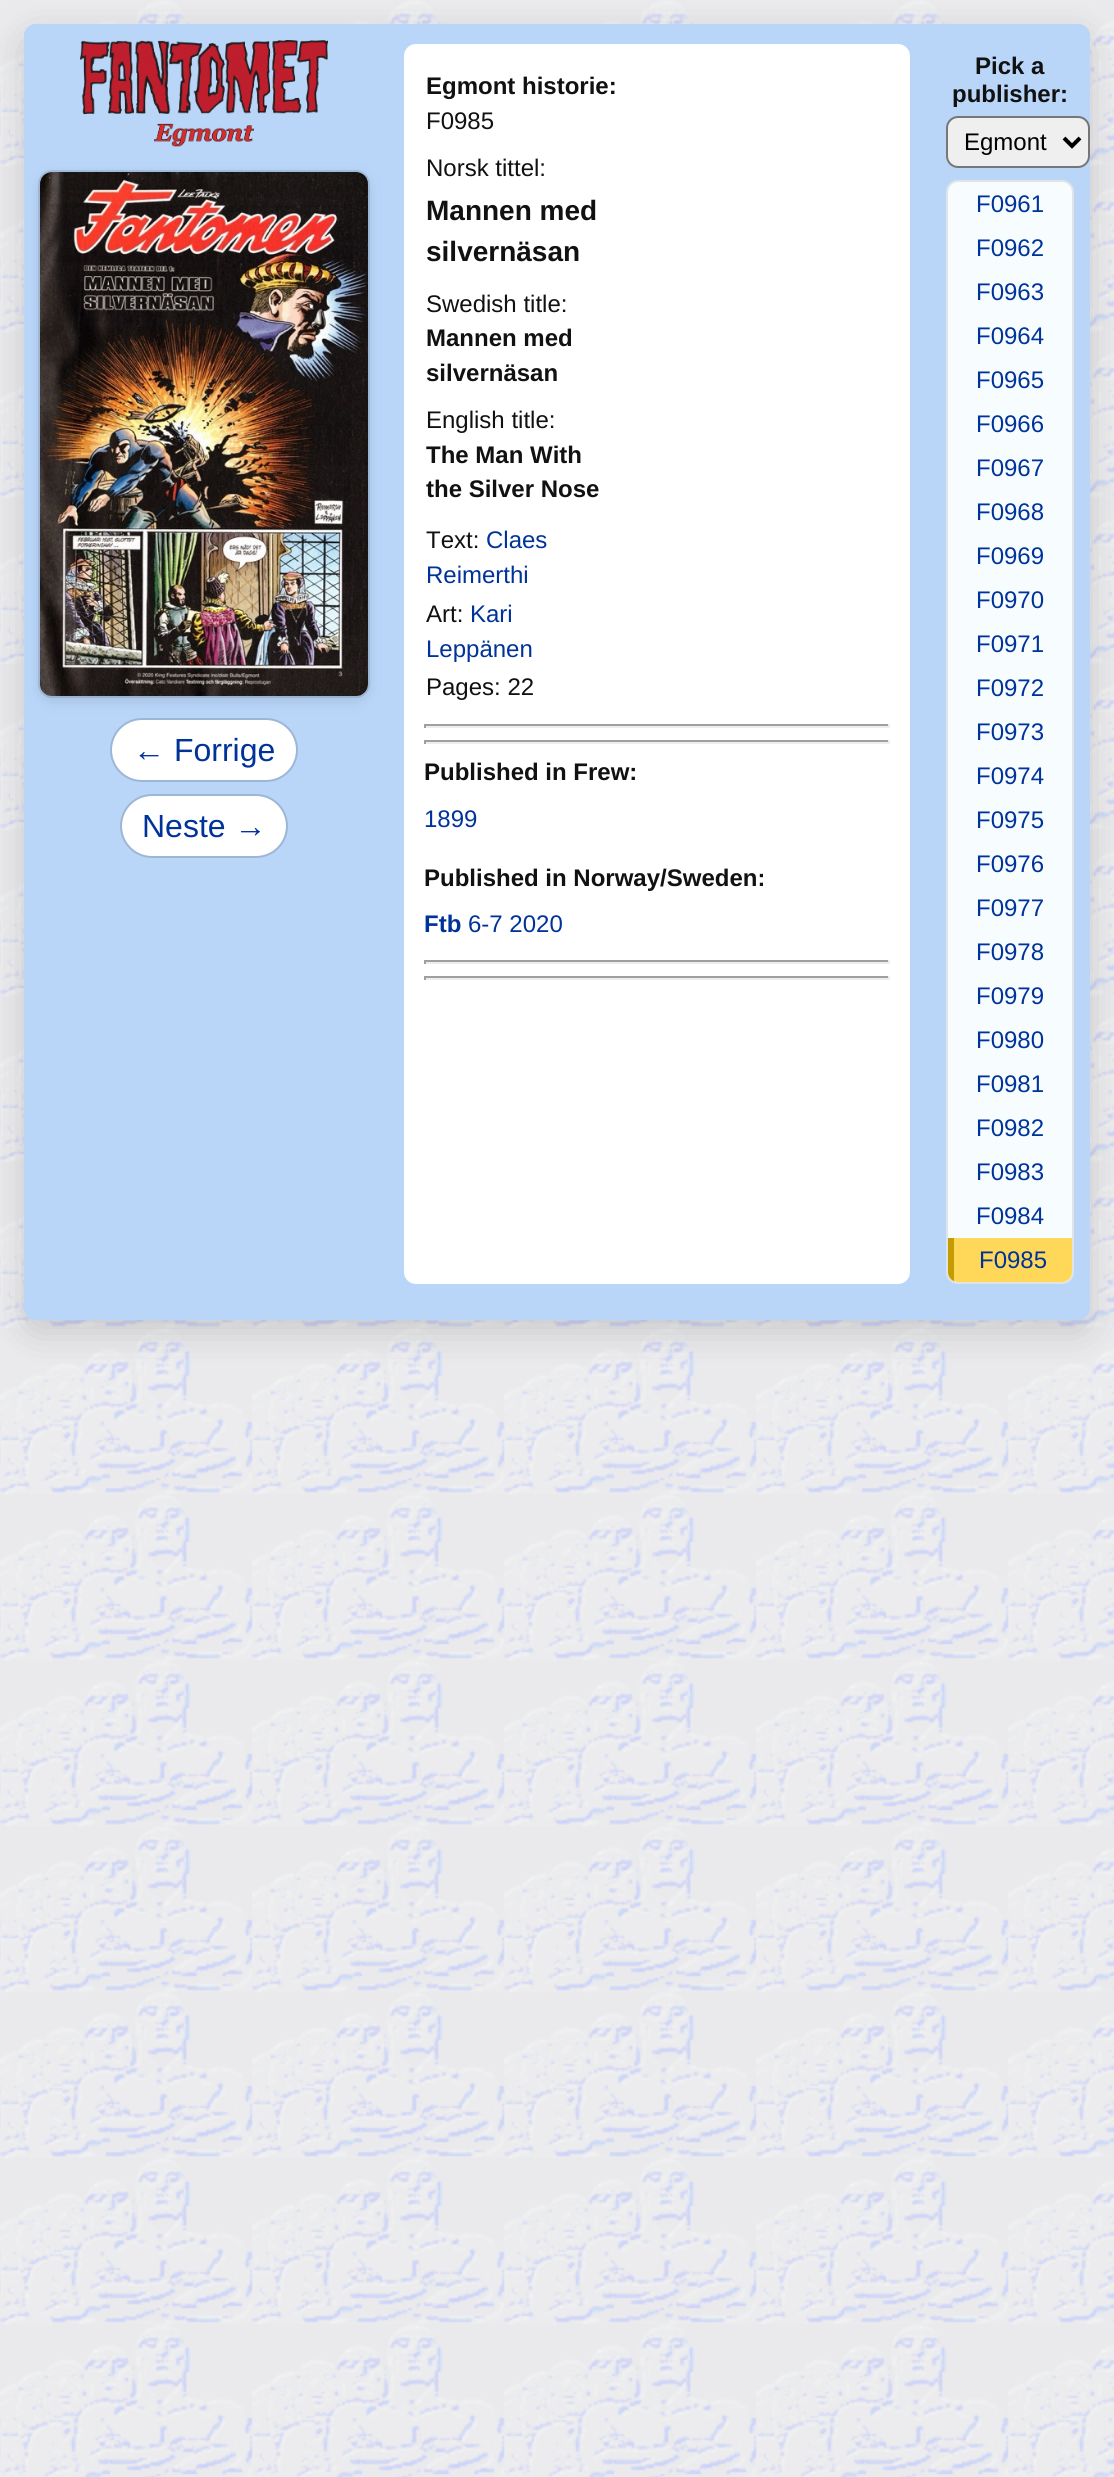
#include <cairo.h>
#include <math.h>
#include <stddef.h>

typedef struct { const char *family; double size; int italic, bold; unsigned color; } style_t;
static cairo_t *ctx;

static void ink(unsigned color) {
    cairo_set_source_rgb(ctx, (color >> 16) / 255.0, (color >> 8 & 255) / 255.0, (color & 255) / 255.0);
}

static void write(double x, double y, const char *s, const style_t *st) {
    cairo_select_font_face(ctx, st->family, st->italic ? CAIRO_FONT_SLANT_ITALIC : CAIRO_FONT_SLANT_NORMAL,
        st->bold ? CAIRO_FONT_WEIGHT_BOLD : CAIRO_FONT_WEIGHT_NORMAL);
    cairo_set_font_size(ctx, st->size);
    ink(st->color);
    cairo_move_to(ctx, x, y);
    cairo_show_text(ctx, s);
}

static void block(double x, double y, double w, double h, unsigned color) {
    ink(color);
    cairo_rectangle(ctx, x, y, w, h);
    cairo_fill(ctx);
}

static void round_path(double x, double y, double w, double h, double r) {
    cairo_new_sub_path(ctx);
    cairo_arc(ctx, x + w - r, y + h - r, r, 0, M_PI / 2);
    cairo_arc(ctx, x + r, y + h - r, r, M_PI / 2, M_PI);
    cairo_arc(ctx, x + r, y + r, r, M_PI, 1.5 * M_PI);
    cairo_arc(ctx, x + w - r, y + r, r, 1.5 * M_PI, 2 * M_PI);
    cairo_close_path(ctx);
}

static void blur_box(double x, double y, double w, double h, double r, double blur, double alpha) {
    cairo_push_group_with_content(ctx, CAIRO_CONTENT_ALPHA);
    cairo_set_operator(ctx, CAIRO_OPERATOR_SOURCE);
    for (int i = 15; i >= -15 && fmin(w, h) + blur * i / 3 > 0; i -= 2) {
        double e = blur * i / 6;
        cairo_set_source_rgba(ctx, 0, 0, 0, alpha * erfc((i - 1) / 8.5) / 2);
        round_path(x - e, y - e, w + 2 * e, h + 2 * e, fmax(0, fmin(r + e + blur * .6, fmin(w, h) / 2 + e)));
        cairo_fill(ctx);
    }
    cairo_pattern_t *soft = cairo_pop_group(ctx);
    cairo_mask(ctx, soft);
    cairo_pattern_destroy(soft);
}

static void paste(const char *path, double x, double y, double w, double h) {
    cairo_surface_t *image = cairo_image_surface_create_from_png(path);
    cairo_save(ctx);
    cairo_set_source_surface(ctx, image, x, y);
    cairo_rectangle(ctx, x, y, w, h);
    cairo_fill(ctx);
    cairo_restore(ctx);
    cairo_surface_destroy(image);
}

static const style_t s1 = {"Liberation Sans", 32, 0, 0, 0x003399};
static const style_t s2 = {"Liberation Sans", 24, 0, 1, 0x111111};
static const style_t s3 = {"Liberation Sans", 24, 0, 0, 0x111111};
static const style_t s4 = {"Liberation Sans", 28, 0, 1, 0x111111};
static const style_t s5 = {"Liberation Sans", 24, 0, 0, 0x003399};
static const style_t s6 = {"Liberation Sans", 24, 0, 1, 0x003399};
static const style_t s7 = {"Liberation Sans", 24, 0, 0, 0x000000};

int main(void) {
    cairo_surface_t *surface = cairo_image_surface_create(CAIRO_FORMAT_RGB24, 1114, 2477);
    ctx = cairo_create(surface);
    cairo_font_options_t *options = cairo_font_options_create();
    cairo_font_options_set_hint_metrics(options, CAIRO_HINT_METRICS_OFF);
    cairo_font_options_set_hint_style(options, CAIRO_HINT_STYLE_NONE);
    cairo_set_font_options(ctx, options);
    cairo_set_miter_limit(ctx, 4);
    ink(0xffffff);
    cairo_paint(ctx);
    paste("pic1.png", 0, 0, 1114, 2477);
    ink(0x000000);
    blur_box(24, 36, 1066, 1296, 12, 18, 0.15);
    ink(0xb9d6f9);
    round_path(24, 24, 1066, 1296, 12);
    cairo_fill(ctx);
    cairo_new_path(ctx);
    cairo_move_to(ctx, 36, 24);
    cairo_line_to(ctx, 384, 24);
    cairo_line_to(ctx, 384, 888);
    cairo_line_to(ctx, 24, 888);
    cairo_line_to(ctx, 24, 36);
    cairo_curve_to(ctx, 24, 29.5, 29.5, 24, 36, 24);
    cairo_close_path(ctx);
    cairo_fill(ctx);
    paste("pic2.png", 80, 40, 248, 107);
    ink(0x000000);
    blur_box(40, 176, 328, 524, 12, 8, 0.12);
    paste("pic3.png", 40, 172, 328, 524);
    round_path(39, 171, 330, 526, 13);
    cairo_set_source_rgba(ctx, 0, 0, 0, 0.1);
    cairo_stroke(ctx);
    ink(0xffffff);
    round_path(112, 720, 184, 60, 30);
    cairo_fill(ctx);
    round_path(111, 719, 186, 62, 31);
    cairo_set_source_rgba(ctx, 0, 0, 0, 0.15);
    cairo_stroke(ctx);
    write(133, 761, "← Forrige", &s1);
    ink(0xffffff);
    round_path(122, 796, 164, 60, 30);
    cairo_fill(ctx);
    round_path(121, 795, 166, 62, 31);
    cairo_set_source_rgba(ctx, 0, 0, 0, 0.15);
    cairo_stroke(ctx);
    write(142, 837, "Neste →", &s1);
    ink(0xffffff);
    round_path(404, 44, 506, 1240, 12);
    cairo_fill(ctx);
    write(426, 94, "Egmont historie:", &s2);
    write(426, 129, "F0985", &s3);
    write(426, 176, "Norsk tittel:", &s3);
    write(426, 220, "Mannen med", &s4);
    write(426, 261, "silvernäsan", &s4);
    write(426, 312, "Swedish title:", &s3);
    write(426, 346, "Mannen med", &s2);
    write(426, 381, "silvernäsan", &s2);
    write(426, 428, "English title:", &s3);
    write(426, 463, "The Man With", &s2);
    write(426, 497, "the Silver Nose", &s2);
    write(426, 548, "Text:", &s3);
    write(486, 548, "Claes", &s5);
    write(426, 583, "Reimerthi", &s5);
    write(426, 622, "Art:", &s3);
    write(470, 622, "Kari", &s5);
    write(426, 657, "Leppänen", &s5);
    write(426, 695, "Pages: 22", &s3);
    block(424, 724, 466, 2, 0x9f9f9f);
    block(888, 724, 2, 4, 0xeeeeee);
    block(424, 726, 466, 2, 0xeeeeee);
    block(424, 724, 2, 4, 0x9f9f9f);
    block(424, 740, 466, 2, 0x9f9f9f);
    block(888, 740, 2, 4, 0xeeeeee);
    block(424, 742, 466, 2, 0xeeeeee);
    block(424, 740, 2, 4, 0x9f9f9f);
    write(424, 780, "Published in Frew:", &s2);
    write(424, 827, "1899", &s5);
    write(424, 886, "Published in Norway/Sweden:", &s2);
    write(424, 932, "Ftb", &s6);
    write(468, 932, "6-7 2020", &s5);
    block(424, 960, 466, 2, 0x9f9f9f);
    block(888, 960, 2, 4, 0xeeeeee);
    block(424, 962, 466, 2, 0xeeeeee);
    block(424, 960, 2, 4, 0x9f9f9f);
    block(424, 976, 466, 2, 0x9f9f9f);
    block(888, 976, 2, 4, 0xeeeeee);
    block(424, 978, 466, 2, 0xeeeeee);
    block(424, 976, 2, 4, 0x9f9f9f);
    ink(0xb9d6f9);
    cairo_new_path(ctx);
    cairo_move_to(ctx, 930, 24);
    cairo_line_to(ctx, 1078, 24);
    cairo_curve_to(ctx, 1084.5, 24, 1090, 29.5, 1090, 36);
    cairo_line_to(ctx, 1090, 1300);
    cairo_line_to(ctx, 930, 1300);
    cairo_close_path(ctx);
    cairo_fill(ctx);
    write(975, 74, "Pick a", &s2);
    write(952, 102, "publisher:", &s2);
    ink(0xefefef);
    round_path(947, 117, 142, 50, 11);
    cairo_fill_preserve(ctx);
    ink(0x767676);
    cairo_stroke(ctx);
    cairo_new_path(ctx);
    cairo_move_to(ctx, 1064, 138);
    cairo_line_to(ctx, 1072, 146);
    cairo_line_to(ctx, 1080, 138);
    ink(0x000000);
    cairo_set_line_width(ctx, 4);
    cairo_stroke(ctx);
    write(964, 150, "Egmont", &s7);
    ink(0xf7fdff);
    round_path(946, 180, 128, 1104, 12);
    cairo_fill(ctx);
    round_path(947, 181, 126, 1102, 11);
    cairo_set_source_rgba(ctx, 0, 0, 0, 0.1);
    cairo_set_line_width(ctx, 2);
    cairo_stroke(ctx);
    write(976, 212, "F0961", &s5);
    write(976, 256, "F0962", &s5);
    write(976, 300, "F0963", &s5);
    write(976, 344, "F0964", &s5);
    write(976, 388, "F0965", &s5);
    write(976, 432, "F0966", &s5);
    write(976, 476, "F0967", &s5);
    write(976, 520, "F0968", &s5);
    write(976, 564, "F0969", &s5);
    write(976, 608, "F0970", &s5);
    write(976, 652, "F0971", &s5);
    write(976, 696, "F0972", &s5);
    write(976, 740, "F0973", &s5);
    write(976, 784, "F0974", &s5);
    write(976, 828, "F0975", &s5);
    write(976, 872, "F0976", &s5);
    write(976, 916, "F0977", &s5);
    write(976, 960, "F0978", &s5);
    write(976, 1004, "F0979", &s5);
    write(976, 1048, "F0980", &s5);
    write(976, 1092, "F0981", &s5);
    write(976, 1136, "F0982", &s5);
    write(976, 1180, "F0983", &s5);
    write(976, 1224, "F0984", &s5);
    ink(0xffd85a);
    cairo_new_path(ctx);
    cairo_move_to(ctx, 948, 1238);
    cairo_line_to(ctx, 1072, 1238);
    cairo_line_to(ctx, 1072, 1272);
    cairo_curve_to(ctx, 1072, 1277.5, 1067.5, 1282, 1062, 1282);
    cairo_line_to(ctx, 958, 1282);
    cairo_curve_to(ctx, 952.5, 1282, 948, 1277.5, 948, 1272);
    cairo_close_path(ctx);
    cairo_fill(ctx);
    cairo_save(ctx);
    round_path(948, 182, 124, 1100, 10);
    cairo_clip(ctx);
    block(948, 1238, 6, 44, 0xc49b00);
    cairo_restore(ctx);
    write(979, 1268, "F0985", &s5);
    cairo_surface_write_to_png(surface, "screenshot.png");
    cairo_font_options_destroy(options);
    cairo_destroy(ctx);
    cairo_surface_destroy(surface);
    return 0;
}
